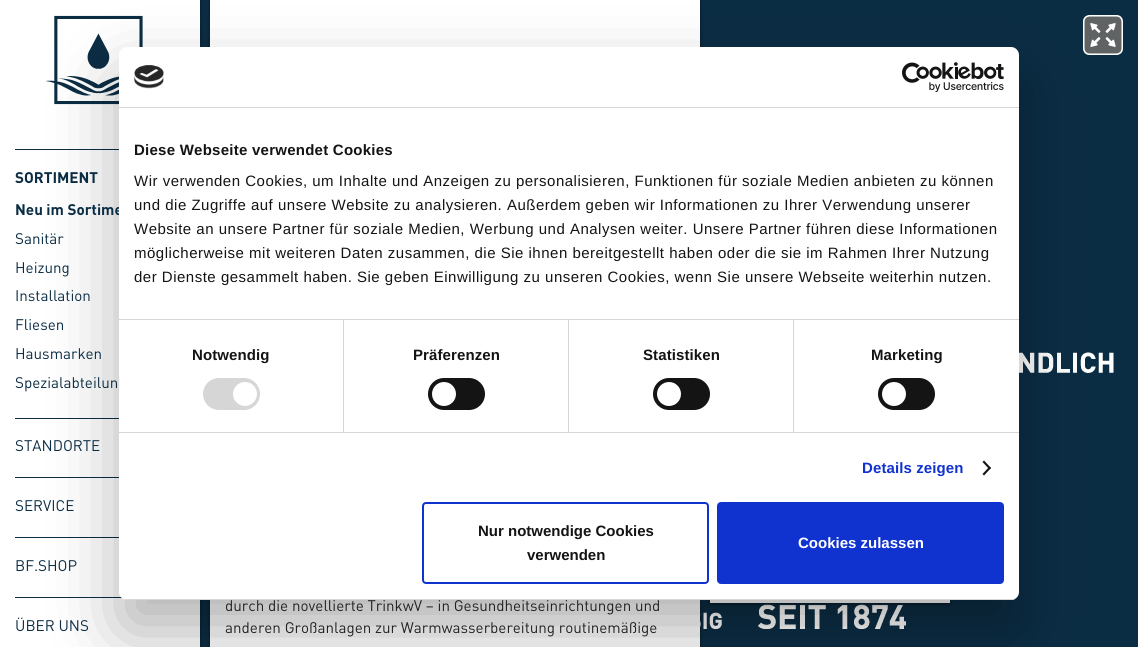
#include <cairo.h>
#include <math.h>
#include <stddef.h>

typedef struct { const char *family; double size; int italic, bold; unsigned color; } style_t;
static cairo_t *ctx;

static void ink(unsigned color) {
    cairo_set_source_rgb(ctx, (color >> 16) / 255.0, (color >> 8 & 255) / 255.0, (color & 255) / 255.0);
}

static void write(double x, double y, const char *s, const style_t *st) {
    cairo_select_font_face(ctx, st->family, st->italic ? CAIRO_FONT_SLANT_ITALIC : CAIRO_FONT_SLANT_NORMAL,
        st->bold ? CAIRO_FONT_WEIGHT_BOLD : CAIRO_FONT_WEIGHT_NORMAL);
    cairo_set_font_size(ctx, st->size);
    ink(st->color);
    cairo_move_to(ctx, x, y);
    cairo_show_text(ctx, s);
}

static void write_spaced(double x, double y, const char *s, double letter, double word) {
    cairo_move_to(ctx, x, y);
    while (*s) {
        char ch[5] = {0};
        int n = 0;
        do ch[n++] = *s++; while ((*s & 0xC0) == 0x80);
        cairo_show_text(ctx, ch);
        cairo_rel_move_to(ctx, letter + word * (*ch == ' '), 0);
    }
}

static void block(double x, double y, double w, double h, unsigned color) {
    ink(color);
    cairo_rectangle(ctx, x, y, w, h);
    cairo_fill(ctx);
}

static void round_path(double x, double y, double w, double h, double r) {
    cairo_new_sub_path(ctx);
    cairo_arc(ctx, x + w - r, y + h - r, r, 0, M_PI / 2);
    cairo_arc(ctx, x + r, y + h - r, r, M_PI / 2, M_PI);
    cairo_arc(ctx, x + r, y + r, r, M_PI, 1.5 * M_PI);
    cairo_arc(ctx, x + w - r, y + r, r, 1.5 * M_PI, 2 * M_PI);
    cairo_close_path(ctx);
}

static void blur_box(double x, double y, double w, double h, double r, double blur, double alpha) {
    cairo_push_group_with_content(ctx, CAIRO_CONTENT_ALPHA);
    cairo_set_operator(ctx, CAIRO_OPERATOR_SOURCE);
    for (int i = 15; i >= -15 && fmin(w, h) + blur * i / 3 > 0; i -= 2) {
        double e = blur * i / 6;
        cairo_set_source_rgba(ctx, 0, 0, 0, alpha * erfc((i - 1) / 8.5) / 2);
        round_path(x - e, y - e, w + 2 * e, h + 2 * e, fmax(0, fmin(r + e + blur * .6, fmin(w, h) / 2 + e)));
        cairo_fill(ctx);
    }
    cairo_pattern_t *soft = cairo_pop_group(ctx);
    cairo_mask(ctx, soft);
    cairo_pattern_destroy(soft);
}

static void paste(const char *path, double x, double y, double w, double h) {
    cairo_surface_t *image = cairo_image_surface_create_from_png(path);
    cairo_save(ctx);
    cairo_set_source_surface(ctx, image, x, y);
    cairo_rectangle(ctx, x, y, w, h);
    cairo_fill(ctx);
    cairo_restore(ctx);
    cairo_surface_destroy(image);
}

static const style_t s1 = {"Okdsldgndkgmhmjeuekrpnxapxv", 15.2, 0, 1, 0x0b2d44};
static const style_t s2 = {"Liberation Sans", 15, 0, 1, 0x141414};
static const style_t s3 = {"Liberation Sans", 15, 0, 1, 0xffffff};
static const style_t s4 = {"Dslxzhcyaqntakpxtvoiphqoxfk", 15.2, 0, 0, 0x0b2d44};
static const style_t s5 = {"Dslxzhcyaqntakpxtvoiphqoxfk", 15.2, 0, 0, 0x222222};

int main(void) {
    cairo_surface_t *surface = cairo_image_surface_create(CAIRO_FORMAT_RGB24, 1138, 647);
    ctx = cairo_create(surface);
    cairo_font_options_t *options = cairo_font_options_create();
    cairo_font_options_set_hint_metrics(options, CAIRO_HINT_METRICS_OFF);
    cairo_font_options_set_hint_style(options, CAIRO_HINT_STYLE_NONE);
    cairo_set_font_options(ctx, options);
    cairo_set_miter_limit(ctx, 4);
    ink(0x0b2d44);
    cairo_paint(ctx);
    ink(0x000000);
    blur_box(0, 1, 200, 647, 0, 2, 0.5);
    block(0, 0, 200, 647, 0xffffff);
    paste("pic1.png", 46, 15, 97, 90);
    paste("pic2.png", 1083, 15, 40, 40);
    paste("pic3.png", 700, 134, 414, 495);
    block(15, 149, 104, 1, 0x0b2d44);
    block(15, 418, 104, 1, 0x0b2d44);
    block(15, 477, 104, 1, 0x0b2d44);
    block(15, 537, 104, 1, 0x0b2d44);
    block(15, 597, 107, 1, 0x0b2d44);
    ink(0x000000);
    blur_box(710, 346, 240, 258, 0, 2, 0.5);
    block(710, 600, 240, 3, 0xffffff);
    ink(0x000000);
    blur_box(210, -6, 490, 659, 0, 2, 0.5);
    block(210, 0, 490, 647, 0xffffff);
    ink(0x000000);
    blur_box(119, 79, 900, 553, 8, 34, 0.3);
    write(15, 215, "Neu im Sortime", &s1);
    ink(0xffffff);
    round_path(119, 47, 900, 553, 8);
    cairo_fill(ctx);
    block(119, 107, 900, 1, 0xd6d6d6);
    paste("pic4.png", 134, 65, 30, 24);
    paste("pic5.png", 902, 62, 102, 30);
    block(119, 319, 900, 1, 0xd6d6d6);
    cairo_select_font_face(ctx, "Liberation Sans", CAIRO_FONT_SLANT_NORMAL, CAIRO_FONT_WEIGHT_BOLD);
    cairo_set_font_size(ctx, 15);
    ink(0x141414);
    write_spaced(134, 155, "Diese Webseite verwendet Cookies", 0.25, 0);
    cairo_select_font_face(ctx, "Liberation Sans", CAIRO_FONT_SLANT_NORMAL, CAIRO_FONT_WEIGHT_NORMAL);
    write_spaced(134, 186, "Wir verwenden Cookies, um Inhalte und Anzeigen zu personalisieren, Funktionen für soziale Medien anbieten zu können", 0.5, 0);
    write_spaced(134, 210, "und die Zugriffe auf unsere Website zu analysieren. Außerdem geben wir Informationen zu Ihrer Verwendung unserer", 0.5, 0);
    write_spaced(134, 234, "Website an unsere Partner für soziale Medien, Werbung und Analysen weiter. Unsere Partner führen diese Informationen", 0.5, 0);
    write_spaced(134, 258, "möglicherweise mit weiteren Daten zusammen, die Sie ihnen bereitgestellt haben oder die sie im Rahmen Ihrer Nutzung", 0.5, 0);
    write_spaced(134, 282, "der Dienste gesammelt haben. Sie geben Einwilligung zu unseren Cookies, wenn Sie unsere Webseite weiterhin nutzen.", 0.5, 0);
    block(119, 432, 900, 1, 0xd6d6d6);
    block(343, 320, 1, 112, 0xd6d6d6);
    cairo_select_font_face(ctx, "Liberation Sans", CAIRO_FONT_SLANT_NORMAL, CAIRO_FONT_WEIGHT_BOLD);
    ink(0x141414);
    write_spaced(192, 360, "Notwendig", 0.1, 0);
    ink(0xd6d6d6);
    round_path(203, 378, 57, 32, 16);
    cairo_fill(ctx);
    ink(0xffffff);
    cairo_arc(ctx, 245, 394, 12, 0, 2 * M_PI);
    cairo_fill(ctx);
    block(568, 320, 1, 112, 0xd6d6d6);
    ink(0x141414);
    write_spaced(413, 360, "Präferenzen", 0.1, 0);
    round_path(428, 378, 57, 32, 16);
    cairo_fill(ctx);
    ink(0xffffff);
    cairo_arc(ctx, 444, 394, 12, 0, 2 * M_PI);
    cairo_fill(ctx);
    block(793, 320, 1, 112, 0xd6d6d6);
    ink(0x141414);
    write_spaced(643, 360, "Statistiken", 0.1, 0);
    round_path(653, 378, 57, 32, 16);
    cairo_fill(ctx);
    ink(0xffffff);
    cairo_arc(ctx, 669, 394, 12, 0, 2 * M_PI);
    cairo_fill(ctx);
    ink(0x141414);
    write_spaced(871, 360, "Marketing", 0.1, 0);
    round_path(878, 378, 57, 32, 16);
    cairo_fill(ctx);
    ink(0xffffff);
    cairo_arc(ctx, 894, 394, 12, 0, 2 * M_PI);
    cairo_fill(ctx);
    ink(0x1032cf);
    write_spaced(862, 473, "Details zeigen", 0.1, 0);
    ink(0x141414);
    cairo_new_path(ctx);
    cairo_move_to(ctx, 984, 460.5);
    cairo_line_to(ctx, 991, 468);
    cairo_line_to(ctx, 989.5, 469.5);
    cairo_line_to(ctx, 982.5, 462);
    cairo_close_path(ctx);
    cairo_fill(ctx);
    cairo_new_path(ctx);
    cairo_move_to(ctx, 989.5, 466.5);
    cairo_line_to(ctx, 991, 468);
    cairo_line_to(ctx, 984, 475.5);
    cairo_line_to(ctx, 982.5, 474);
    cairo_close_path(ctx);
    cairo_fill(ctx);
    cairo_save(ctx);
    round_path(119, 47, 900, 553, 8);
    cairo_clip(ctx);
    block(119, 599, 900, 1, 0xd6d6d6);
    cairo_restore(ctx);
    round_path(423, 503, 285, 80, 3);
    ink(0x1032cf);
    cairo_stroke(ctx);
    write(478, 536, "Nur notwendige Cookies", &s2);
    write(527, 560, "verwenden", &s2);
    ink(0x1032cf);
    round_path(718, 503, 285, 80, 3);
    cairo_fill_preserve(ctx);
    cairo_stroke(ctx);
    write(798, 548, "Cookies zulassen", &s3);
    write(15, 183, "SORTIMENT", &s1);
    write(15, 244, "Sanitär", &s4);
    write(15, 273, "Heizung", &s4);
    write(15, 301, "Installation", &s4);
    write(15, 330, "Fliesen", &s4);
    write(15, 359, "Hausmarken", &s4);
    write(15, 388, "Spezialabteilun", &s4);
    write(15, 451, "STANDORTE", &s4);
    write(15, 511, "SERVICE", &s4);
    write(15, 571, "BF.SHOP", &s4);
    write(15, 631, "ÜBER UNS", &s4);
    write(225, 611, "durch die novellierte TrinkwV – in Gesundheitseinrichtungen und", &s5);
    write(225, 633, "anderen Großanlagen zur Warmwasserbereitung routinemäßige", &s5);
    cairo_surface_write_to_png(surface, "screenshot.png");
    cairo_font_options_destroy(options);
    cairo_destroy(ctx);
    cairo_surface_destroy(surface);
    return 0;
}
